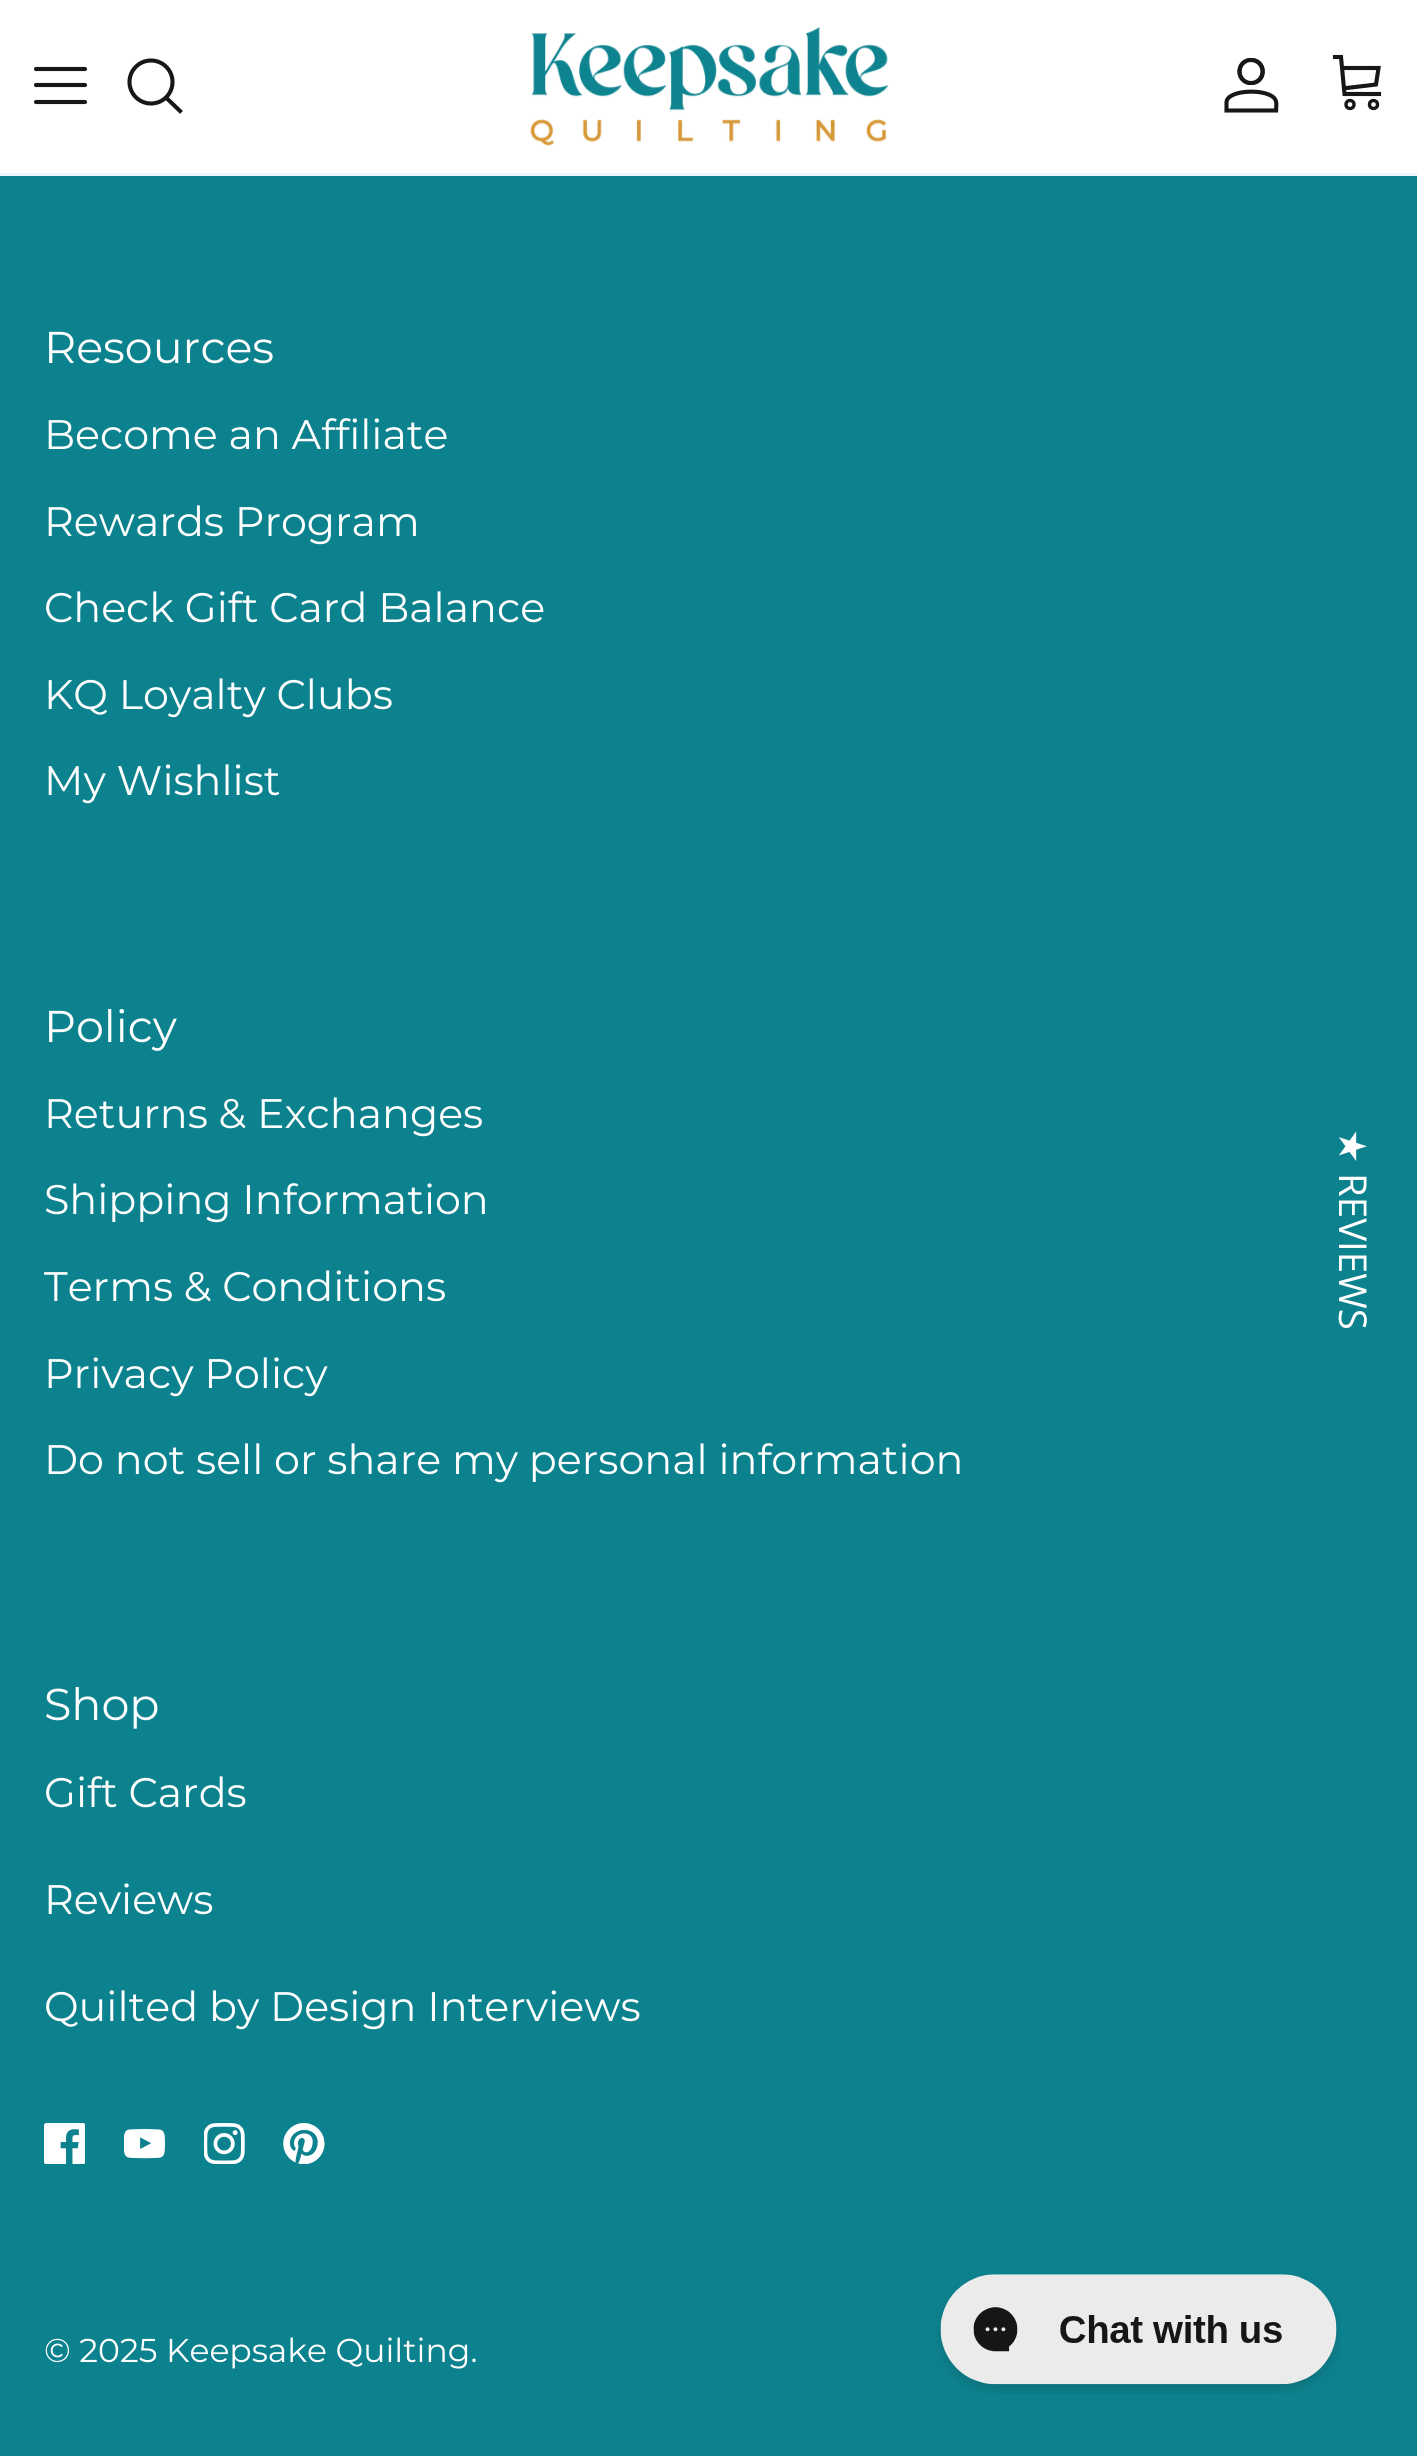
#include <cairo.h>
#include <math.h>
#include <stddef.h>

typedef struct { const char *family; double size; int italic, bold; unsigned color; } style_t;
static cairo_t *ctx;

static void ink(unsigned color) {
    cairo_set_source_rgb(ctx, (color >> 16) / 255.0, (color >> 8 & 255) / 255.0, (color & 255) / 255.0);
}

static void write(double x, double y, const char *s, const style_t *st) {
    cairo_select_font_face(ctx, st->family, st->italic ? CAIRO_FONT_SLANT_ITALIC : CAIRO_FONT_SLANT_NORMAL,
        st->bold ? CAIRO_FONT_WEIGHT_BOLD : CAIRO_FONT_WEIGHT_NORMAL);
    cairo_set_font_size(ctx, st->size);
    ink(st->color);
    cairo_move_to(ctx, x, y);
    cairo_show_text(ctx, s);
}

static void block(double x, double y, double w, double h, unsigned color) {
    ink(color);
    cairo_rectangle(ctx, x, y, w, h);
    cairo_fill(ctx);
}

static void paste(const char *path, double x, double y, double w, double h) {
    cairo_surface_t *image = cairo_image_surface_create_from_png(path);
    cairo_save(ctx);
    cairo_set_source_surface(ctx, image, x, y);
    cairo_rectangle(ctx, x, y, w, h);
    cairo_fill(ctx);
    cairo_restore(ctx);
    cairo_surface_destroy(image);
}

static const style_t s1 = {"Montserrat Thin", 44.5, 0, 0, 0xffffff};
static const style_t s2 = {"Montserrat Thin", 41.25, 0, 0, 0xffffff};
static const style_t s3 = {"Montserrat Thin", 33, 0, 0, 0xffffff};
static const style_t s4 = {"DejaVu Sans", 38.5, 0, 0, 0xffffff};
static const style_t s5 = {"Open Sans", 38.5, 0, 0, 0xffffff};

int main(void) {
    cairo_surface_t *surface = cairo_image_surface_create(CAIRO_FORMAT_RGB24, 1417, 2456);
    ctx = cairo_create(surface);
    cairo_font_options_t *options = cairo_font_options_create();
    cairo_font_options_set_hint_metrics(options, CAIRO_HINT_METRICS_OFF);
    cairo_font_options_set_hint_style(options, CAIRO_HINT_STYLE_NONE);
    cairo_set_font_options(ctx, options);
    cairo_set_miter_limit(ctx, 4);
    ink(0x0c828e);
    cairo_paint(ctx);
    block(0, 0, 1417, 173, 0xffffff);
    block(0, 173, 1417, 3, 0xeef4f9);
    cairo_new_path(ctx);
    cairo_move_to(ctx, 36, 85);
    cairo_line_to(ctx, 85, 85);
    cairo_move_to(ctx, 36, 69);
    cairo_line_to(ctx, 85, 69);
    cairo_move_to(ctx, 36, 102);
    cairo_line_to(ctx, 85, 102);
    ink(0x171717);
    cairo_set_line_width(ctx, 4.1);
    cairo_set_line_cap(ctx, CAIRO_LINE_CAP_ROUND);
    cairo_set_line_join(ctx, CAIRO_LINE_JOIN_ROUND);
    cairo_stroke(ctx);
    cairo_arc(ctx, 151, 82, 21.5, 0, 2 * M_PI);
    cairo_set_line_cap(ctx, CAIRO_LINE_CAP_BUTT);
    cairo_set_line_join(ctx, CAIRO_LINE_JOIN_MITER);
    cairo_stroke(ctx);
    cairo_new_path(ctx);
    cairo_move_to(ctx, 167.5, 99);
    cairo_line_to(ctx, 180, 111);
    cairo_set_line_cap(ctx, CAIRO_LINE_CAP_SQUARE);
    cairo_stroke(ctx);
    paste("pic1.png", 530, 27, 359, 119);
    cairo_set_fill_rule(ctx, CAIRO_FILL_RULE_EVEN_ODD);
    cairo_new_path(ctx);
    cairo_move_to(ctx, 1251, 58);
    cairo_curve_to(ctx, 1269.5, 58, 1269.5, 85, 1251, 85);
    cairo_curve_to(ctx, 1233, 85, 1233, 58, 1251, 58);
    cairo_close_path(ctx);
    cairo_move_to(ctx, 1251, 61.5);
    cairo_curve_to(ctx, 1238.5, 61.5, 1238, 81, 1251, 81.5);
    cairo_curve_to(ctx, 1264, 82, 1264.5, 61.5, 1251, 61.5);
    cairo_close_path(ctx);
    cairo_fill(ctx);
    cairo_arc(ctx, 1251, 71.5, 11.5, 0, 2 * M_PI);
    cairo_set_line_cap(ctx, CAIRO_LINE_CAP_BUTT);
    cairo_stroke(ctx);
    cairo_new_path(ctx);
    cairo_move_to(ctx, 1226.5, 102.5);
    cairo_curve_to(ctx, 1226.5, 89, 1270, 88, 1275.5, 100);
    cairo_curve_to(ctx, 1277, 103, 1276, 107.5, 1276, 110.5);
    cairo_line_to(ctx, 1226.5, 110.5);
    cairo_close_path(ctx);
    cairo_stroke(ctx);
    cairo_new_path(ctx);
    cairo_move_to(ctx, 1335, 57);
    cairo_line_to(ctx, 1341, 57);
    cairo_line_to(ctx, 1344.5, 94);
    cairo_line_to(ctx, 1379, 94);
    cairo_move_to(ctx, 1342.5, 68);
    cairo_line_to(ctx, 1378.5, 68);
    cairo_line_to(ctx, 1376, 84.5);
    cairo_line_to(ctx, 1346.5, 88);
    cairo_set_line_cap(ctx, CAIRO_LINE_CAP_SQUARE);
    cairo_stroke(ctx);
    cairo_arc(ctx, 1350, 104.5, 4, 0, 2 * M_PI);
    cairo_set_line_width(ctx, 3.4);
    cairo_set_line_cap(ctx, CAIRO_LINE_CAP_BUTT);
    cairo_stroke(ctx);
    cairo_arc(ctx, 1373.5, 104.5, 4, 0, 2 * M_PI);
    cairo_stroke(ctx);
    write(44, 363, "Resources", &s1);
    write(44, 449, "Become an Affiliate", &s2);
    write(44, 536, "Rewards Program", &s2);
    write(44, 622, "Check Gift Card Balance", &s2);
    write(44, 709, "KQ Loyalty Clubs", &s2);
    write(44, 795, "My Wishlist", &s2);
    write(44, 1042, "Policy", &s1);
    write(44, 1128, "Returns & Exchanges", &s2);
    write(44, 1214, "Shipping Information", &s2);
    write(44, 1301, "Terms & Conditions", &s2);
    write(44, 1388, "Privacy Policy", &s2);
    write(44, 1474, "Do not sell or share my personal information", &s2);
    write(44, 1720, "Shop", &s1);
    write(44, 1807, "Gift Cards", &s2);
    write(44, 1914, "Reviews", &s2);
    write(44, 2021, "Quilted by Design Interviews", &s2);
    paste("pic2.png", 44, 2123, 41, 41);
    paste("pic3.png", 124, 2129, 41, 30);
    paste("pic4.png", 204, 2123, 41, 41);
    paste("pic5.png", 283, 2123, 42, 41);
    write(44, 2362, "© 2025 Keepsake Quilting.", &s3);
    cairo_save(ctx);
    cairo_translate(ctx, 1339, 1129);
    cairo_rotate(ctx, 90 * M_PI / 180);
    write(0, 0, "★", &s4);
    cairo_restore(ctx);
    cairo_save(ctx);
    cairo_translate(ctx, 1339, 1173);
    cairo_rotate(ctx, 90 * M_PI / 180);
    write(0, 0, "REVIEWS", &s5);
    cairo_restore(ctx);
    paste("pic6.png", 936, 2274, 405, 120);
    cairo_surface_write_to_png(surface, "screenshot.png");
    cairo_font_options_destroy(options);
    cairo_destroy(ctx);
    cairo_surface_destroy(surface);
    return 0;
}
